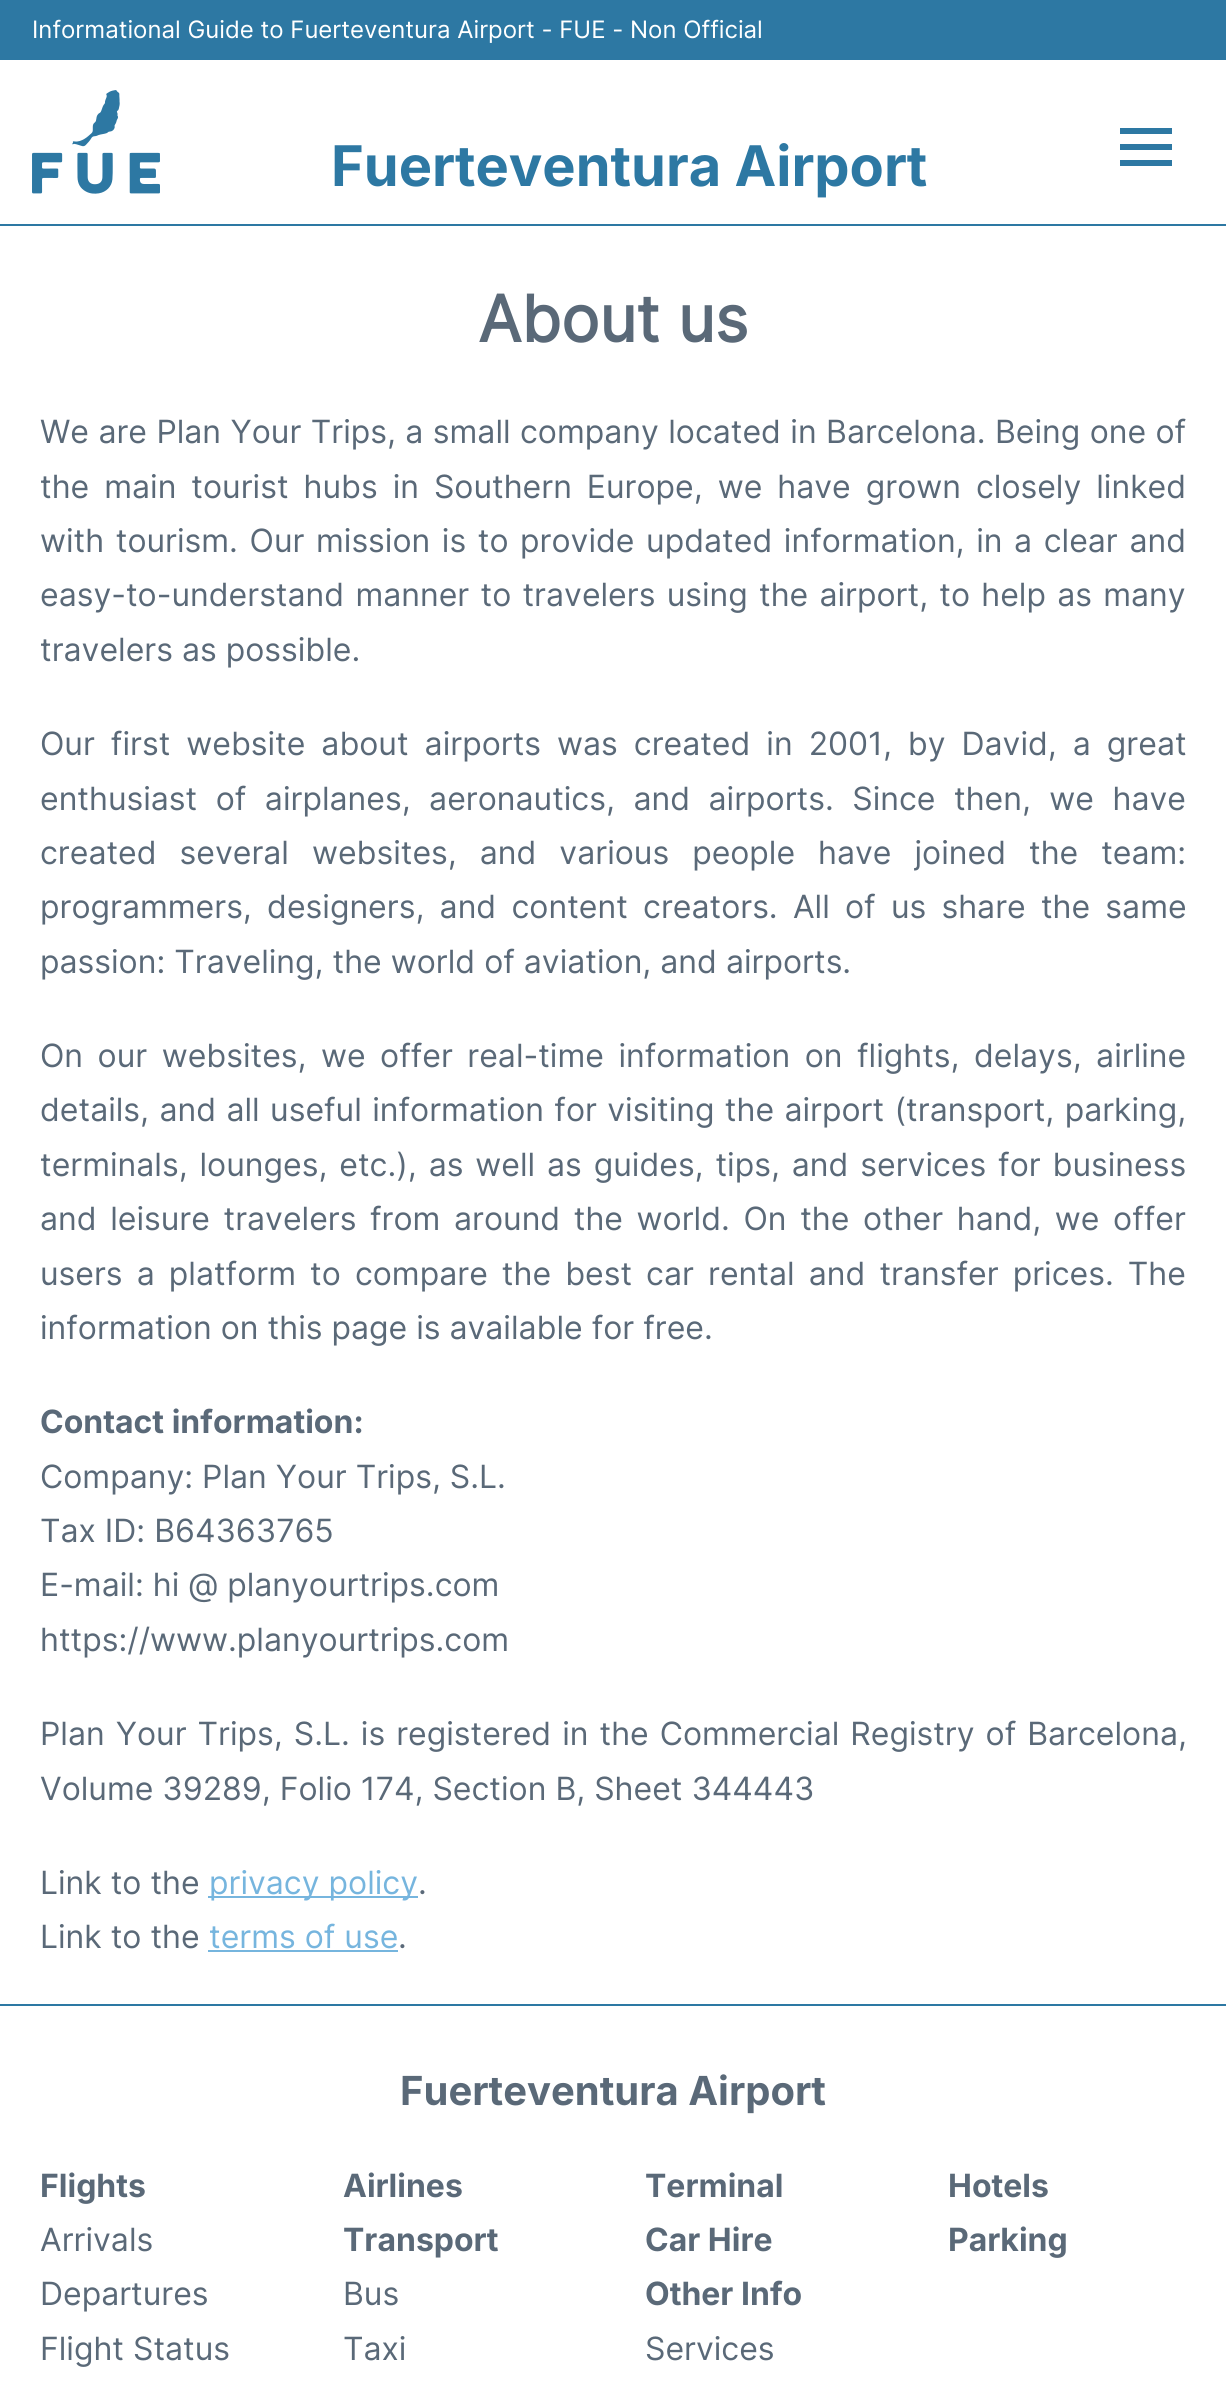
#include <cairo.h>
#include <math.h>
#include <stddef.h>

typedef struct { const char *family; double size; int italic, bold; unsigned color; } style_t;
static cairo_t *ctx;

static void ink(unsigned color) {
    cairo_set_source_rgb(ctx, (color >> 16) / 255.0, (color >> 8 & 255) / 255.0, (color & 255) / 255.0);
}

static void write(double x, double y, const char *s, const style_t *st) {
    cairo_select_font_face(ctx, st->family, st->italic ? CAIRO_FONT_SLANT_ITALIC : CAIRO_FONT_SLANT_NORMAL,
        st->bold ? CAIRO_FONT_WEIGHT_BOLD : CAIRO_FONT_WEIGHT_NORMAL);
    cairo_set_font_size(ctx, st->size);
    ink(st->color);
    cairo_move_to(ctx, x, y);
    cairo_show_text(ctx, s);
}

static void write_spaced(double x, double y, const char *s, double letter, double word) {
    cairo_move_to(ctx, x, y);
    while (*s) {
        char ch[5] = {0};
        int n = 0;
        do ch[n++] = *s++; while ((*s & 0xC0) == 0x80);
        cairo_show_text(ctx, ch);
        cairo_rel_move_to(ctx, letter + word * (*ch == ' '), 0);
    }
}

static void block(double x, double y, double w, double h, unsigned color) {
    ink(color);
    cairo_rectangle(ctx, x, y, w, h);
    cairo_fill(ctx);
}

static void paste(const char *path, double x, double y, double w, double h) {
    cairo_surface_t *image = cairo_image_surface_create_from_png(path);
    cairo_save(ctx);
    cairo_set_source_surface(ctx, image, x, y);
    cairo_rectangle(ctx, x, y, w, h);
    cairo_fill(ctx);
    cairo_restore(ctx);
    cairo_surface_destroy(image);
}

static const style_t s1 = {"Inter", 24, 0, 0, 0xffffff};
static const style_t s2 = {"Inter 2", 56, 0, 1, 0x2d78a3};
static const style_t s3 = {"Inter", 64, 0, 1, 0x5a6978};
static const style_t s4 = {"Inter", 32, 0, 0, 0x5a6978};
static const style_t s5 = {"Inter 2", 32, 0, 1, 0x5a6978};
static const style_t s6 = {"Inter", 32, 0, 0, 0x76b5de};
static const style_t s7 = {"Inter 2", 40, 0, 1, 0x5a6978};

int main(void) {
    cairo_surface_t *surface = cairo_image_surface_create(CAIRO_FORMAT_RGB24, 1226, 2387);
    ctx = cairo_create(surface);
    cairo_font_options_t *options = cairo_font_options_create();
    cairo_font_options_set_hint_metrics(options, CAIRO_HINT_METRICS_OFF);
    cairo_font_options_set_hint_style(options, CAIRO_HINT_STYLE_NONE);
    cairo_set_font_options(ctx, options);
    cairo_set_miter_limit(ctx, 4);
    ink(0xffffff);
    cairo_paint(ctx);
    block(0, 0, 1226, 60, 0x2d78a3);
    write(32, 38, "Informational Guide to Fuerteventura Airport - FUE - Non Official", &s1);
    block(0, 224, 1226, 2, 0x2d78a3);
    paste("pic1.png", 32, 90, 128, 104);
    write(331, 186, "Fuerteventura Airport", &s2);
    block(1120, 144, 52, 6, 0x2d78a3);
    block(1120, 128, 52, 6, 0x2d78a3);
    block(1120, 160, 52, 6, 0x2d78a3);
    write(478, 342, "About us", &s3);
    cairo_select_font_face(ctx, "Inter", CAIRO_FONT_SLANT_NORMAL, CAIRO_FONT_WEIGHT_NORMAL);
    cairo_set_font_size(ctx, 32);
    write_spaced(40, 443, "We are Plan Your Trips, a small company located in Barcelona. Being one of", 0, 0.4);
    write_spaced(40, 498, "the main tourist hubs in Southern Europe, we have grown closely linked", 0, 6);
    write_spaced(40, 552, "with tourism. Our mission is to provide updated information, in a clear and", 0, 2.6);
    write_spaced(40, 606, "easy-to-understand manner to travelers using the airport, to help as many", 0, 2.25);
    write(40, 661, "travelers as possible.", &s4);
    write_spaced(40, 755, "Our first website about airports was created in 2001, by David, a great", 0, 7);
    write_spaced(40, 810, "enthusiast of airplanes, aeronautics, and airports. Since then, we have", 0, 9.5);
    write_spaced(40, 864, "created several websites, and various people have joined the team:", 0, 14);
    write_spaced(40, 918, "programmers, designers, and content creators. All of us share the same", 0, 6.25);
    write(40, 973, "passion: Traveling, the world of aviation, and airports.", &s4);
    write_spaced(40, 1067, "On our websites, we offer real-time information on flights, delays, airline", 0, 5.5);
    write_spaced(40, 1121, "details, and all useful information for visiting the airport (transport, parking,", 0, 1.4);
    write_spaced(40, 1176, "terminals, lounges, etc.), as well as guides, tips, and services for business", 0, 2.9);
    write_spaced(40, 1230, "and leisure travelers from around the world. On the other hand, we offer", 0, 4.6);
    write_spaced(40, 1285, "users a platform to compare the best car rental and transfer prices. The", 0, 5.1);
    write(40, 1339, "information on this page is available for free.", &s4);
    write(40, 1433, "Contact information:", &s5);
    write(40, 1488, "Company: Plan Your Trips, S.L.", &s4);
    write(40, 1542, "Tax ID: B64363765", &s4);
    write(40, 1596, "E-mail: hi @ planyourtrips.com", &s4);
    write(40, 1651, "https://www.planyourtrips.com", &s4);
    write_spaced(40, 1745, "Plan Your Trips, S.L. is registered in the Commercial Registry of Barcelona,", 0, 2);
    write(40, 1800, "Volume 39289, Folio 174, Section B, Sheet 344443", &s4);
    write(40, 1894, "Link to the", &s4);
    block(208, 1896, 210, 2, 0x76b5de);
    write(209, 1894, "privacy policy", &s6);
    write(418, 1894, ".", &s4);
    write(40, 1948, "Link to the", &s4);
    write(209, 1948, "terms of use", &s6);
    block(208, 1950, 190, 2, 0x76b5de);
    write(398, 1948, ".", &s4);
    block(0, 2004, 1226, 2, 0x2d78a3);
    write(400, 2105, "Fuerteventura Airport", &s7);
    write(40, 2197, "Flights", &s5);
    write(40, 2251, "Arrivals", &s4);
    write(40, 2305, "Departures", &s4);
    write(40, 2360, "Flight Status", &s4);
    write(343, 2197, "Airlines", &s5);
    write(343, 2251, "Transport", &s5);
    write(343, 2305, "Bus", &s4);
    write(343, 2360, "Taxi", &s4);
    write(645, 2197, "Terminal", &s5);
    write(645, 2251, "Car Hire", &s5);
    write(645, 2305, "Other Info", &s5);
    write(645, 2360, "Services", &s4);
    write(948, 2197, "Hotels", &s5);
    write(948, 2251, "Parking", &s5);
    cairo_surface_write_to_png(surface, "screenshot.png");
    cairo_font_options_destroy(options);
    cairo_destroy(ctx);
    cairo_surface_destroy(surface);
    return 0;
}
